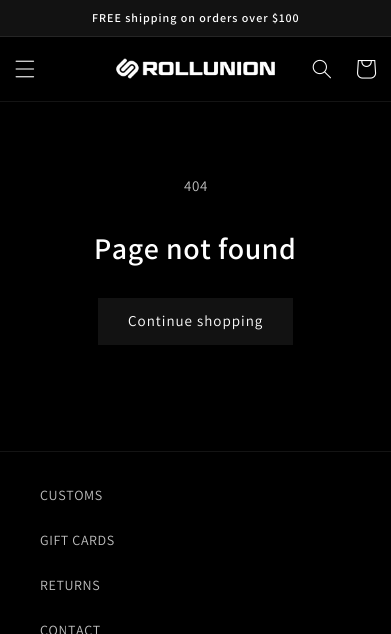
#include <cairo.h>
#include <math.h>
#include <stddef.h>

static cairo_t *ctx;

static void ink(unsigned color) {
    cairo_set_source_rgb(ctx, (color >> 16) / 255.0, (color >> 8 & 255) / 255.0, (color & 255) / 255.0);
}

static void write_spaced(double x, double y, const char *s, double letter, double word) {
    cairo_move_to(ctx, x, y);
    while (*s) {
        char ch[5] = {0};
        int n = 0;
        do ch[n++] = *s++; while ((*s & 0xC0) == 0x80);
        cairo_show_text(ctx, ch);
        cairo_rel_move_to(ctx, letter + word * (*ch == ' '), 0);
    }
}

static void block(double x, double y, double w, double h, unsigned color) {
    ink(color);
    cairo_rectangle(ctx, x, y, w, h);
    cairo_fill(ctx);
}

static void paste(const char *path, double x, double y, double w, double h) {
    cairo_surface_t *image = cairo_image_surface_create_from_png(path);
    cairo_save(ctx);
    cairo_set_source_surface(ctx, image, x, y);
    cairo_rectangle(ctx, x, y, w, h);
    cairo_fill(ctx);
    cairo_restore(ctx);
    cairo_surface_destroy(image);
}

int main(void) {
    cairo_surface_t *surface = cairo_image_surface_create(CAIRO_FORMAT_RGB24, 391, 634);
    ctx = cairo_create(surface);
    cairo_font_options_t *options = cairo_font_options_create();
    cairo_font_options_set_hint_metrics(options, CAIRO_HINT_METRICS_OFF);
    cairo_font_options_set_hint_style(options, CAIRO_HINT_STYLE_NONE);
    cairo_set_font_options(ctx, options);
    cairo_set_miter_limit(ctx, 4);
    ink(0x000000);
    cairo_paint(ctx);
    block(0, 0, 391, 36, 0x121212);
    block(0, 36, 391, 1, 0x252525);
    cairo_select_font_face(ctx, "Assistant SemiBold", CAIRO_FONT_SLANT_NORMAL, CAIRO_FONT_WEIGHT_NORMAL);
    cairo_set_font_size(ctx, 12);
    ink(0xffffff);
    write_spaced(92, 22, "FREE shipping on orders over $100", 1, 0);
    block(0, 101, 391, 1, 0x141414);
    paste("pic1.png", 15, 60, 20, 18);
    paste("pic2.png", 116, 58, 159, 21);
    paste("pic3.png", 312, 59, 19, 20);
    paste("pic4.png", 357, 60, 20, 19);
    cairo_select_font_face(ctx, "Assistant", CAIRO_FONT_SLANT_NORMAL, CAIRO_FONT_WEIGHT_NORMAL);
    cairo_set_font_size(ctx, 15);
    ink(0xbfbfbf);
    write_spaced(184, 191, "404", 0.6, 0);
    cairo_select_font_face(ctx, "Assistant SemiBold", CAIRO_FONT_SLANT_NORMAL, CAIRO_FONT_WEIGHT_NORMAL);
    cairo_set_font_size(ctx, 30);
    ink(0xffffff);
    write_spaced(94, 259, "Page not found", 0.6, 0);
    block(98, 298, 195, 47, 0x121212);
    cairo_select_font_face(ctx, "Assistant", CAIRO_FONT_SLANT_NORMAL, CAIRO_FONT_WEIGHT_NORMAL);
    cairo_set_font_size(ctx, 15);
    ink(0xffffff);
    write_spaced(128, 326, "Continue shopping", 1, 0);
    block(0, 451, 391, 1, 0x141414);
    cairo_set_font_size(ctx, 14);
    ink(0xbfbfbf);
    write_spaced(40, 500, "CUSTOMS", 0.6, 0);
    write_spaced(40, 545, "GIFT CARDS", 0.6, 0);
    write_spaced(40, 590, "RETURNS", 0.6, 0);
    write_spaced(40, 635, "CONTACT", 0.6, 0);
    cairo_surface_write_to_png(surface, "screenshot.png");
    cairo_font_options_destroy(options);
    cairo_destroy(ctx);
    cairo_surface_destroy(surface);
    return 0;
}
